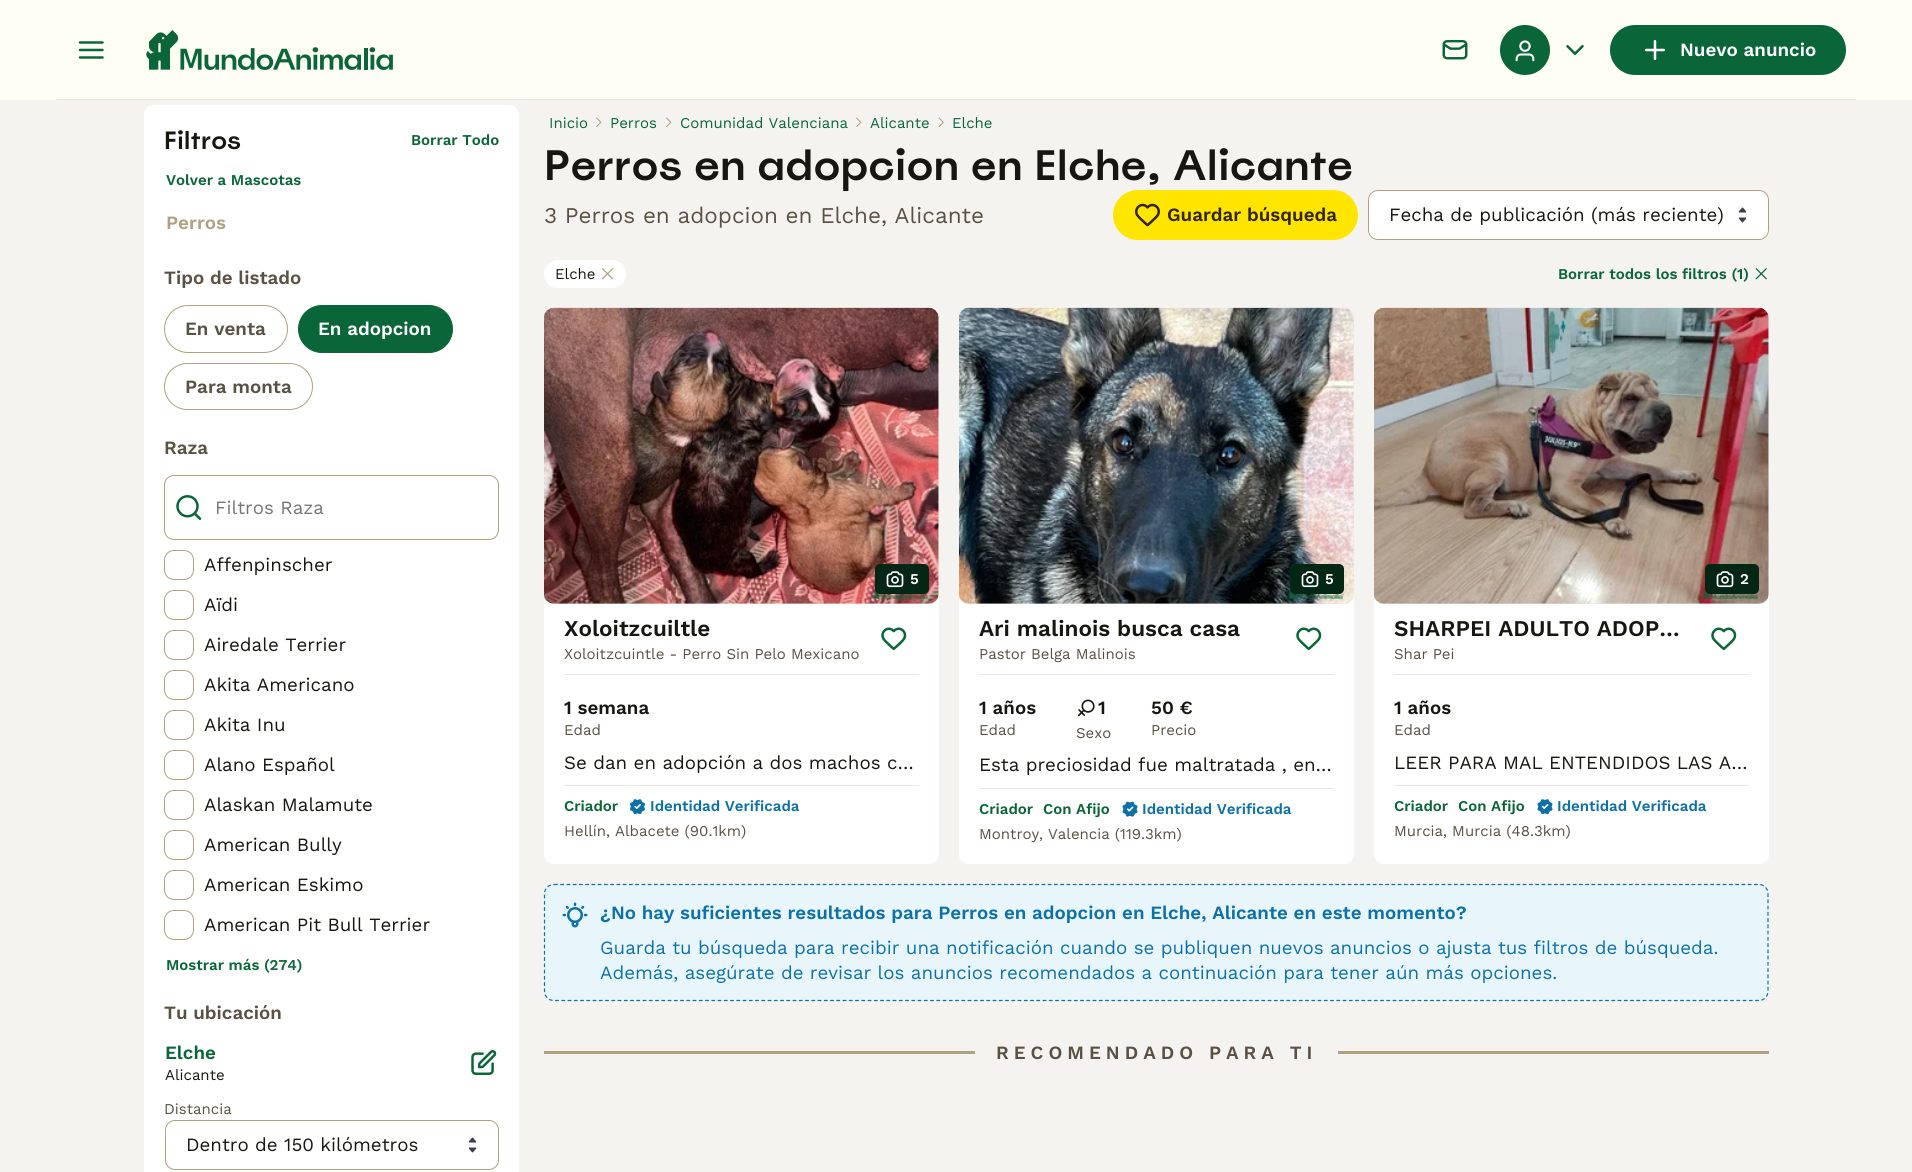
#include <cairo.h>
#include <math.h>
#include <stddef.h>

typedef struct { const char *family; double size; int italic, bold; unsigned color; } style_t;
static cairo_t *ctx;

static void ink(unsigned color) {
    cairo_set_source_rgb(ctx, (color >> 16) / 255.0, (color >> 8 & 255) / 255.0, (color & 255) / 255.0);
}

static void write(double x, double y, const char *s, const style_t *st) {
    cairo_select_font_face(ctx, st->family, st->italic ? CAIRO_FONT_SLANT_ITALIC : CAIRO_FONT_SLANT_NORMAL,
        st->bold ? CAIRO_FONT_WEIGHT_BOLD : CAIRO_FONT_WEIGHT_NORMAL);
    cairo_set_font_size(ctx, st->size);
    ink(st->color);
    cairo_move_to(ctx, x, y);
    cairo_show_text(ctx, s);
}

static void write_spaced(double x, double y, const char *s, double letter, double word) {
    cairo_move_to(ctx, x, y);
    while (*s) {
        char ch[5] = {0};
        int n = 0;
        do ch[n++] = *s++; while ((*s & 0xC0) == 0x80);
        cairo_show_text(ctx, ch);
        cairo_rel_move_to(ctx, letter + word * (*ch == ' '), 0);
    }
}

static void block(double x, double y, double w, double h, unsigned color) {
    ink(color);
    cairo_rectangle(ctx, x, y, w, h);
    cairo_fill(ctx);
}

static void round_path(double x, double y, double w, double h, double r) {
    cairo_new_sub_path(ctx);
    cairo_arc(ctx, x + w - r, y + h - r, r, 0, M_PI / 2);
    cairo_arc(ctx, x + r, y + h - r, r, M_PI / 2, M_PI);
    cairo_arc(ctx, x + r, y + r, r, M_PI, 1.5 * M_PI);
    cairo_arc(ctx, x + w - r, y + r, r, 1.5 * M_PI, 2 * M_PI);
    cairo_close_path(ctx);
}

static void paste(const char *path, double x, double y, double w, double h) {
    cairo_surface_t *image = cairo_image_surface_create_from_png(path);
    cairo_save(ctx);
    cairo_set_source_surface(ctx, image, x, y);
    cairo_rectangle(ctx, x, y, w, h);
    cairo_fill(ctx);
    cairo_restore(ctx);
    cairo_surface_destroy(image);
}

static const style_t s1 = {"Work Sans SemiBold", 18.75, 0, 0, 0xffffff};
static const style_t s2 = {"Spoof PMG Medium", 25, 0, 0, 0x171711};
static const style_t s3 = {"Work Sans SemiBold", 15, 0, 0, 0x0a6638};
static const style_t s4 = {"Work Sans SemiBold", 18.75, 0, 0, 0xb0a082};
static const style_t s5 = {"Work Sans SemiBold", 18.75, 0, 0, 0x595143};
static const style_t s6 = {"Work Sans", 18.75, 0, 0, 0x757575};
static const style_t s7 = {"Work Sans", 18.75, 0, 0, 0x171711};
static const style_t s8 = {"Work Sans SemiBold", 18.75, 0, 0, 0x0a6638};
static const style_t s9 = {"Work Sans", 15, 0, 0, 0x171711};
static const style_t s10 = {"Work Sans", 15, 0, 0, 0x595143};
static const style_t s11 = {"Work Sans", 15, 0, 0, 0x0a6638};
static const style_t s12 = {"Spoof PMG Medium", 42.5, 0, 0, 0x171711};
static const style_t s13 = {"Work Sans", 22.5, 0, 0, 0x595143};
static const style_t s14 = {"Work Sans SemiBold", 18.75, 0, 0, 0x332400};
static const style_t s15 = {"Work Sans SemiBold", 15, 0, 0, 0xffffff};
static const style_t s16 = {"Work Sans SemiBold", 22.5, 0, 0, 0x171711};
static const style_t s17 = {"Work Sans SemiBold", 18.75, 0, 0, 0x171711};
static const style_t s18 = {"Work Sans SemiBold", 15, 0, 0, 0x0d71a8};
static const style_t s19 = {"Work Sans SemiBold", 18.75, 0, 0, 0x0d71a8};
static const style_t s20 = {"Work Sans", 18.75, 0, 0, 0x0d71a8};

int main(void) {
    cairo_surface_t *surface = cairo_image_surface_create(CAIRO_FORMAT_RGB24, 1912, 1172);
    ctx = cairo_create(surface);
    cairo_font_options_t *options = cairo_font_options_create();
    cairo_font_options_set_hint_metrics(options, CAIRO_HINT_METRICS_OFF);
    cairo_font_options_set_hint_style(options, CAIRO_HINT_STYLE_NONE);
    cairo_set_font_options(ctx, options);
    cairo_set_miter_limit(ctx, 4);
    ink(0xf5f3f0);
    cairo_paint(ctx);
    block(0, 0, 1912, 100, 0xfffef5);
    block(56, 99, 1800, 1, 0xebe6df);
    paste("pic1.png", 78, 41, 26, 18);
    paste("pic2.png", 146, 30, 247, 40);
    paste("pic3.png", 1442, 40, 26, 20);
    ink(0x0a6638);
    cairo_arc(ctx, 1525, 50, 25, 0, 2 * M_PI);
    cairo_fill(ctx);
    paste("pic4.png", 1515, 40, 20, 22);
    paste("pic5.png", 1566, 45, 18, 10);
    round_path(1610, 25, 236, 50, 25);
    cairo_fill(ctx);
    paste("pic6.png", 1645, 40, 20, 20);
    write(1680, 56, "Nuevo anuncio", &s1);
    round_path(144, 105, 375, 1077, 10);
    cairo_fill(ctx);
    write(164, 149, "Filtros", &s2);
    write(411, 145, "Borrar Todo", &s3);
    write(166, 185, "Volver a Mascotas", &s3);
    write(166, 229, "Perros", &s4);
    write(164, 284, "Tipo de listado", &s5);
    round_path(164.5, 305.5, 123, 47, 23.5);
    ink(0xb0a082);
    cairo_set_line_width(ctx, 1);
    cairo_stroke(ctx);
    write(185, 335, "En venta", &s5);
    ink(0x0a6638);
    round_path(298.5, 305.5, 154, 47, 23.5);
    cairo_fill_preserve(ctx);
    cairo_stroke(ctx);
    write(318, 335, "En adopcion", &s1);
    round_path(164.5, 363.5, 148, 46, 23);
    ink(0xb0a082);
    cairo_stroke(ctx);
    write(185, 393, "Para monta", &s5);
    write(164, 454, "Raza", &s5);
    round_path(164.5, 475.5, 334, 64, 9.5);
    ink(0xb0a082);
    cairo_stroke(ctx);
    paste("pic7.png", 176, 495, 26, 25);
    write(215, 514, "Filtros Raza", &s6);
    round_path(164.5, 550.5, 29, 29, 9.5);
    ink(0xb0a082);
    cairo_stroke(ctx);
    write(204, 571, "Affenpinscher", &s7);
    round_path(164.5, 590.5, 29, 29, 9.5);
    ink(0xb0a082);
    cairo_stroke(ctx);
    write(204, 611, "Aïdi", &s7);
    round_path(164.5, 630.5, 29, 29, 9.5);
    ink(0xb0a082);
    cairo_stroke(ctx);
    write(204, 651, "Airedale Terrier", &s7);
    round_path(164.5, 670.5, 29, 29, 9.5);
    ink(0xb0a082);
    cairo_stroke(ctx);
    write(204, 691, "Akita Americano", &s7);
    round_path(164.5, 710.5, 29, 29, 9.5);
    ink(0xb0a082);
    cairo_stroke(ctx);
    write(204, 731, "Akita Inu", &s7);
    round_path(164.5, 750.5, 29, 29, 9.5);
    ink(0xb0a082);
    cairo_stroke(ctx);
    write(204, 771, "Alano Español", &s7);
    round_path(164.5, 790.5, 29, 29, 9.5);
    ink(0xb0a082);
    cairo_stroke(ctx);
    write(204, 811, "Alaskan Malamute", &s7);
    round_path(164.5, 830.5, 29, 29, 9.5);
    ink(0xb0a082);
    cairo_stroke(ctx);
    write(204, 851, "American Bully", &s7);
    round_path(164.5, 870.5, 29, 29, 9.5);
    ink(0xb0a082);
    cairo_stroke(ctx);
    write(204, 891, "American Eskimo", &s7);
    round_path(164.5, 910.5, 29, 29, 9.5);
    ink(0xb0a082);
    cairo_stroke(ctx);
    write(204, 931, "American Pit Bull Terrier", &s7);
    write(166, 970, "Mostrar más (274)", &s3);
    write(164, 1019, "Tu ubicación", &s5);
    write(165, 1059, "Elche", &s8);
    write(165, 1080, "Alicante", &s9);
    paste("pic8.png", 471, 1050, 26, 25);
    write(164, 1114, "Distancia", &s10);
    paste("pic9.png", 468, 1137, 9, 16);
    round_path(165.5, 1120.5, 333, 49, 9.5);
    ink(0xb0a082);
    cairo_stroke(ctx);
    write(186, 1151, "Dentro de 150 kilómetros", &s7);
    write(549, 128, "Inicio", &s11);
    paste("pic10.png", 596, 117, 6, 10);
    write(610, 128, "Perros", &s11);
    paste("pic10.png", 666, 117, 6, 10);
    write(680, 128, "Comunidad Valenciana", &s11);
    paste("pic10.png", 856, 117, 6, 10);
    write(870, 128, "Alicante", &s11);
    paste("pic11.png", 938, 117, 6, 10);
    write(952, 128, "Elche", &s11);
    write(544, 180, "Perros en adopcion en Elche, Alicante", &s12);
    write(544, 223, "3 Perros en adopcion en Elche, Alicante", &s13);
    ink(0xffe500);
    round_path(1113, 190, 245, 50, 25);
    cairo_fill(ctx);
    paste("pic12.png", 1135, 203, 25, 24);
    write(1167, 221, "Guardar búsqueda", &s14);
    ink(0xffffff);
    round_path(1368, 190, 401, 50, 10);
    cairo_fill(ctx);
    paste("pic9.png", 1738, 207, 9, 16);
    round_path(1368.5, 190.5, 400, 49, 9.5);
    ink(0xb0a082);
    cairo_stroke(ctx);
    write(1389, 221, "Fecha de publicación (más reciente)", &s7);
    ink(0xffffff);
    round_path(544.5, 260.5, 81, 27, 13.5);
    cairo_fill_preserve(ctx);
    cairo_stroke(ctx);
    write(555, 279, "Elche", &s9);
    paste("pic13.png", 601, 268, 13, 12);
    write(1558, 279, "Borrar todos los filtros (1)", &s3);
    paste("pic14.png", 1755, 268, 12, 12);
    ink(0xffffff);
    round_path(544, 308, 395, 556, 10);
    cairo_fill(ctx);
    ink(0xebe6df);
    round_path(544, 308, 395, 296, 10);
    cairo_fill(ctx);
    paste("pic15.png", 544, 307, 395, 297);
    ink(0x042615);
    round_path(875, 564, 54, 30, 5);
    cairo_fill(ctx);
    paste("pic16.png", 886, 571, 18, 17);
    write(910, 584, "5", &s15);
    write(564, 636, "Xoloitzcuiltle", &s16);
    write(564, 659, "Xoloitzcuintle - Perro Sin Pelo Mexicano", &s10);
    paste("pic17.png", 881, 627, 26, 23);
    block(564, 674, 355, 1, 0xebe6df);
    block(564, 785, 355, 1, 0xebe6df);
    write(564, 714, "1 semana", &s17);
    write(564, 735, "Edad", &s10);
    write(564, 769, "Se dan en adopción a dos machos c…", &s7);
    write(564, 811, "Criador", &s3);
    paste("pic18.png", 630, 799, 15, 16);
    write(650, 811, "Identidad Verificada", &s18);
    write(564, 836, "Hellín", &s10);
    write(606, 836, ", Albacete (90.1km)", &s10);
    ink(0xffffff);
    round_path(959, 308, 395, 556, 10);
    cairo_fill(ctx);
    ink(0xebe6df);
    round_path(959, 308, 395, 296, 10);
    cairo_fill(ctx);
    paste("pic19.png", 959, 307, 395, 297);
    ink(0x042615);
    round_path(1290, 564, 54, 30, 5);
    cairo_fill(ctx);
    paste("pic16.png", 1301, 571, 18, 17);
    write(1325, 584, "5", &s15);
    write(979, 636, "Ari malinois busca casa", &s16);
    write(979, 659, "Pastor Belga Malinois", &s10);
    paste("pic17.png", 1296, 627, 26, 23);
    block(979, 674, 355, 1, 0xebe6df);
    block(979, 788, 355, 1, 0xebe6df);
    write(979, 714, "1 años", &s17);
    write(979, 735, "Edad", &s10);
    paste("pic20.png", 1078, 699, 17, 18);
    write(1098, 714, "1", &s17);
    write(1076, 738, "Sexo", &s10);
    write(1151, 714, "50 €", &s17);
    write(1151, 735, "Precio", &s10);
    write(979, 771, "Esta preciosidad fue maltratada , en…", &s7);
    write(979, 814, "Criador", &s3);
    write(1043, 814, "Con Afijo", &s3);
    paste("pic21.png", 1122, 801, 16, 16);
    write(1142, 814, "Identidad Verificada", &s18);
    write(979, 839, "Montroy", &s10);
    write(1039, 839, ", Valencia (119.3km)", &s10);
    ink(0xffffff);
    round_path(1374, 308, 395, 556, 10);
    cairo_fill(ctx);
    ink(0xebe6df);
    round_path(1374, 308, 395, 296, 10);
    cairo_fill(ctx);
    paste("pic22.png", 1374, 307, 395, 297);
    ink(0x042615);
    round_path(1705, 564, 54, 30, 5);
    cairo_fill(ctx);
    paste("pic16.png", 1716, 571, 18, 17);
    write(1740, 584, "2", &s15);
    write(1394, 636, "SHARPEI ADULTO ADOP…", &s16);
    write(1394, 659, "Shar Pei", &s10);
    paste("pic17.png", 1711, 627, 26, 23);
    block(1394, 674, 355, 1, 0xebe6df);
    block(1394, 785, 355, 1, 0xebe6df);
    write(1394, 714, "1 años", &s17);
    write(1394, 735, "Edad", &s10);
    write(1394, 769, "LEER PARA MAL ENTENDIDOS LAS A…", &s7);
    write(1394, 811, "Criador", &s3);
    write(1458, 811, "Con Afijo", &s3);
    paste("pic23.png", 1537, 799, 16, 16);
    write(1557, 811, "Identidad Verificada", &s18);
    write(1394, 836, "Murcia", &s10);
    write(1443, 836, ", Murcia (48.3km)", &s10);
    ink(0xe8f6fc);
    round_path(544, 884, 1225, 117, 10);
    cairo_fill(ctx);
    cairo_new_path(ctx);
    cairo_move_to(ctx, 554, 884.5);
    cairo_line_to(ctx, 1759, 884.5);
    cairo_curve_to(ctx, 1764, 884.5, 1768, 888.5, 1768, 894);
    cairo_line_to(ctx, 1768, 991);
    cairo_curve_to(ctx, 1768, 996.5, 1764, 1000.5, 1759, 1000.5);
    cairo_line_to(ctx, 554, 1000.5);
    cairo_curve_to(ctx, 548.5, 1000.5, 544.5, 996.5, 544.5, 991);
    cairo_line_to(ctx, 544.5, 894);
    cairo_curve_to(ctx, 544.5, 888.5, 548.5, 884.5, 554, 884.5);
    cairo_close_path(ctx);
    ink(0x0d71a8);
    cairo_set_line_width(ctx, 1.2);
    cairo_set_dash(ctx, (double[]){3.75, 2.5}, 2, 0);
    cairo_stroke(ctx);
    paste("pic24.png", 562, 902, 26, 26);
    write(600, 919, "¿No hay suficientes resultados para Perros en adopcion en Elche, Alicante en este momento?", &s19);
    write(600, 954, "Guarda tu búsqueda para recibir una notificación cuando se publiquen nuevos anuncios o ajusta tus filtros de búsqueda.", &s20);
    write(600, 979, "Además, asegúrate de revisar los anuncios recomendados a continuación para tener aún más opciones.", &s20);
    block(544, 1051, 1225, 3, 0xb0a082);
    block(975, 1051, 363, 3, 0xf5f3f0);
    cairo_select_font_face(ctx, "Work Sans SemiBold", CAIRO_FONT_SLANT_NORMAL, CAIRO_FONT_WEIGHT_NORMAL);
    ink(0x595143);
    write_spaced(996, 1059, "RECOMENDADO PARA TI", 5, 0);
    cairo_surface_write_to_png(surface, "screenshot.png");
    cairo_font_options_destroy(options);
    cairo_destroy(ctx);
    cairo_surface_destroy(surface);
    return 0;
}
